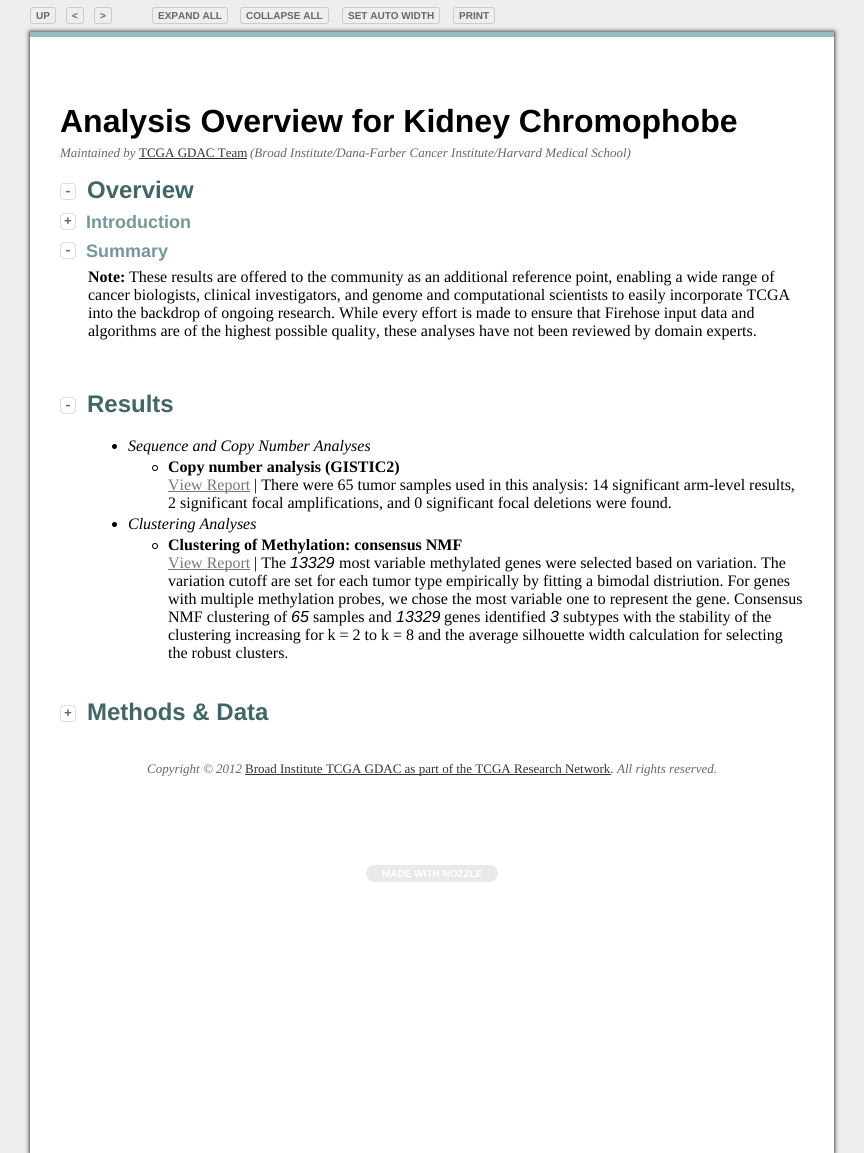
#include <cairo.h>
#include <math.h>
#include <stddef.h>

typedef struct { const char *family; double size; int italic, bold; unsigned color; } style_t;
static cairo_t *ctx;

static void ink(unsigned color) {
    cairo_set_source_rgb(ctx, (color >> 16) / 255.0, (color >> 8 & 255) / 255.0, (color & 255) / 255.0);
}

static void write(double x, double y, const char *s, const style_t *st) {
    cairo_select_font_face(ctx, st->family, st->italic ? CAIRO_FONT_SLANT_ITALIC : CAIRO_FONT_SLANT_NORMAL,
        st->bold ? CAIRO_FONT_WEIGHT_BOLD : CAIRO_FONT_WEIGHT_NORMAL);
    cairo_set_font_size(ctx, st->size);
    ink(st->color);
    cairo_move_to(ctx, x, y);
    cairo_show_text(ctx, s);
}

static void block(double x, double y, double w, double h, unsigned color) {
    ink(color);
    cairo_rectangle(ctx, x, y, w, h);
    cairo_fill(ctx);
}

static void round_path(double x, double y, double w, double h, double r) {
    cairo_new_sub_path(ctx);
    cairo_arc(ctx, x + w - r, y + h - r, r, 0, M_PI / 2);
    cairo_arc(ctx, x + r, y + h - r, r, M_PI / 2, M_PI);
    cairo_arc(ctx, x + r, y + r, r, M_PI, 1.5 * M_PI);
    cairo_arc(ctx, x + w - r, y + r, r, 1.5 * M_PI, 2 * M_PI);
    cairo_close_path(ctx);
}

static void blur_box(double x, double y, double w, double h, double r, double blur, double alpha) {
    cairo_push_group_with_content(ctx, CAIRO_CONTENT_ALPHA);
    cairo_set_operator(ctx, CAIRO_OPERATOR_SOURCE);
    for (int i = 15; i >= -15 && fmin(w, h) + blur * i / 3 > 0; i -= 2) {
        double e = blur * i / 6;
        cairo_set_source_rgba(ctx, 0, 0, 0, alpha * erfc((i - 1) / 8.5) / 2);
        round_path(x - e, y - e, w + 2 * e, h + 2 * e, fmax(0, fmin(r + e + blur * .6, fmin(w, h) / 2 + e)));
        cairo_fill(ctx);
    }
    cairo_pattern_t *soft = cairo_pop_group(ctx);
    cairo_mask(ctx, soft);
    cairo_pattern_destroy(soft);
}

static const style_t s1 = {"Liberation Sans", 10, 0, 1, 0x666666};
static const style_t s2 = {"Liberation Sans", 32, 0, 1, 0x000000};
static const style_t s3 = {"Liberation Serif", 13, 1, 0, 0x666666};
static const style_t s4 = {"Liberation Serif", 13, 0, 0, 0x333333};
static const style_t s5 = {"Liberation Mono", 13, 0, 1, 0x666666};
static const style_t s6 = {"Liberation Sans", 24, 0, 1, 0x426566};
static const style_t s7 = {"Liberation Sans", 18, 0, 1, 0x749899};
static const style_t s8 = {"Liberation Serif", 16, 0, 1, 0x000000};
static const style_t s9 = {"Liberation Serif", 16, 0, 0, 0x000000};
static const style_t s10 = {"Liberation Serif", 16, 1, 0, 0x000000};
static const style_t s11 = {"Liberation Serif", 16, 0, 0, 0x777777};
static const style_t s12 = {"Liberation Sans", 16, 1, 0, 0x000000};
static const style_t s13 = {"Liberation Sans", 10, 0, 1, 0xffffff};

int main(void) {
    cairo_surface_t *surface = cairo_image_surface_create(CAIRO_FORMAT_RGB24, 864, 1153);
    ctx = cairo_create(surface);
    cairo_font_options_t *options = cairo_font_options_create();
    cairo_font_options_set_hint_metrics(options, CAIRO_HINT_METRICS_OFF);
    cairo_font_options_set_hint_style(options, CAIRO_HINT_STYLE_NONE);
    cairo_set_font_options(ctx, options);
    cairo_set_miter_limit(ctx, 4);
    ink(0xeeeeee);
    cairo_paint(ctx);
    ink(0x000000);
    blur_box(30, 32, 804, 1121, 0, 2.5, 1);
    round_path(30.5, 7.5, 25, 16, 2.5);
    ink(0xcccccc);
    cairo_set_line_width(ctx, 1);
    cairo_stroke(ctx);
    write(36, 19, "UP", &s1);
    round_path(66.5, 7.5, 17, 16, 2.5);
    ink(0xcccccc);
    cairo_stroke(ctx);
    write(72, 19, "<", &s1);
    round_path(94.5, 7.5, 17, 16, 2.5);
    ink(0xcccccc);
    cairo_stroke(ctx);
    write(100, 19, ">", &s1);
    round_path(152.5, 7.5, 75, 16, 2.5);
    ink(0xcccccc);
    cairo_stroke(ctx);
    write(158, 19, "EXPAND ALL", &s1);
    round_path(240.5, 7.5, 88, 16, 2.5);
    ink(0xcccccc);
    cairo_stroke(ctx);
    write(246, 19, "COLLAPSE ALL", &s1);
    round_path(342.5, 7.5, 97, 16, 2.5);
    ink(0xcccccc);
    cairo_stroke(ctx);
    write(348, 19, "SET AUTO WIDTH", &s1);
    round_path(453.5, 7.5, 41, 16, 2.5);
    ink(0xcccccc);
    cairo_stroke(ctx);
    write(459, 19, "PRINT", &s1);
    block(30, 37, 804, 1116, 0xffffff);
    block(30, 32, 804, 5, 0x91bfc0);
    write(60, 132, "Analysis Overview for Kidney Chromophobe", &s2);
    write(60, 157, "Maintained by", &s3);
    write(139, 157, "TCGA GDAC Team", &s4);
    block(139, 158, 108, 1, 0x333333);
    write(250, 157, "(Broad Institute/Dana-Farber Cancer Institute/Harvard Medical School)", &s3);
    round_path(60.5, 183.5, 15, 16, 3.5);
    ink(0xdddddd);
    cairo_stroke(ctx);
    write(64, 195, "-", &s5);
    write(87, 198, "Overview", &s6);
    round_path(60.5, 213.5, 15, 16, 3.5);
    ink(0xdddddd);
    cairo_stroke(ctx);
    write(64, 225, "+", &s5);
    write(86, 228, "Introduction", &s7);
    round_path(60.5, 242.5, 15, 16, 3.5);
    ink(0xdddddd);
    cairo_stroke(ctx);
    write(64, 254, "-", &s5);
    write(86, 257, "Summary", &s7);
    write(88, 282, "Note:", &s8);
    write(129, 282, "These results are offered to the community as an additional reference point, enabling a wide range of", &s9);
    write(88, 300, "cancer biologists, clinical investigators, and genome and computational scientists to easily incorporate TCGA", &s9);
    write(88, 318, "into the backdrop of ongoing research. While every effort is made to ensure that Firehose input data and", &s9);
    write(88, 336, "algorithms are of the highest possible quality, these analyses have not been reviewed by domain experts.", &s9);
    round_path(60.5, 397.5, 15, 16, 3.5);
    ink(0xdddddd);
    cairo_stroke(ctx);
    write(64, 409, "-", &s5);
    write(87, 412, "Results", &s6);
    ink(0x000000);
    cairo_new_path(ctx);
    cairo_arc(ctx, 114.5, 446.5, 2.5, 0, 2 * M_PI);
    cairo_fill(ctx);
    write(128, 451, "Sequence and Copy Number Analyses", &s10);
    cairo_new_path(ctx);
    cairo_arc(ctx, 155, 468, 2.5, 0, 2 * M_PI);
    cairo_stroke(ctx);
    write(168, 472, "Copy number analysis (GISTIC2)", &s8);
    block(168, 491, 82, 1, 0x777777);
    write(168, 490, "View Report", &s11);
    write(254, 490, "| There were 65 tumor samples used in this analysis: 14 significant arm-level results,", &s9);
    write(168, 508, "2 significant focal amplifications, and 0 significant focal deletions were found.", &s9);
    cairo_new_path(ctx);
    cairo_arc(ctx, 114.5, 524.5, 2.5, 0, 2 * M_PI);
    cairo_fill(ctx);
    write(128, 529, "Clustering Analyses", &s10);
    cairo_new_path(ctx);
    cairo_arc(ctx, 155, 546, 2.5, 0, 2 * M_PI);
    cairo_stroke(ctx);
    write(168, 550, "Clustering of Methylation: consensus NMF", &s8);
    block(168, 569, 82, 1, 0x777777);
    write(168, 568, "View Report", &s11);
    write(254, 568, "| The", &s9);
    write(290, 568, "13329", &s12);
    write(339, 568, "most variable methylated genes were selected based on variation. The", &s9);
    write(168, 586, "variation cutoff are set for each tumor type empirically by fitting a bimodal distriution. For genes", &s9);
    write(168, 604, "with multiple methylation probes, we chose the most variable one to represent the gene. Consensus", &s9);
    write(168, 622, "NMF clustering of", &s9);
    write(291, 622, "65", &s12);
    write(313, 622, "samples and", &s9);
    write(396, 622, "13329", &s12);
    write(444, 622, "genes identified", &s9);
    write(550, 622, "3", &s12);
    write(563, 622, "subtypes with the stability of the", &s9);
    write(168, 640, "clustering increasing for k = 2 to k = 8 and the average silhouette width calculation for selecting", &s9);
    write(168, 658, "the robust clusters.", &s9);
    round_path(60.5, 705.5, 15, 16, 3.5);
    ink(0xdddddd);
    cairo_stroke(ctx);
    write(64, 717, "+", &s5);
    write(87, 720, "Methods & Data", &s6);
    write(147, 773, "Copyright © 2012", &s3);
    block(245, 774, 366, 1, 0x333333);
    write(245, 773, "Broad Institute TCGA GDAC as part of the TCGA Research Network.", &s4);
    write(617, 773, "All rights reserved.", &s3);
    ink(0xe9e9e9);
    round_path(366, 865, 132, 17, 8.5);
    cairo_fill(ctx);
    write(382, 877, "MADE WITH NOZZLE", &s13);
    cairo_surface_write_to_png(surface, "screenshot.png");
    cairo_font_options_destroy(options);
    cairo_destroy(ctx);
    cairo_surface_destroy(surface);
    return 0;
}
